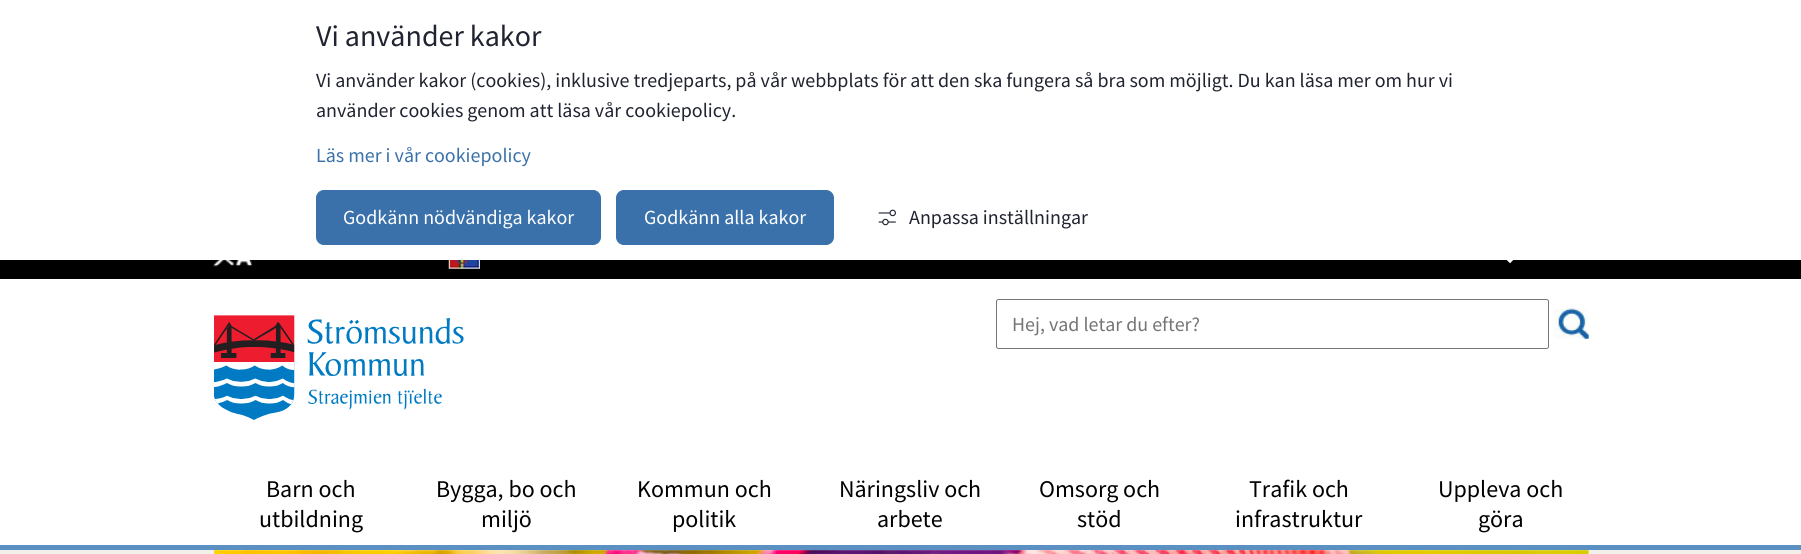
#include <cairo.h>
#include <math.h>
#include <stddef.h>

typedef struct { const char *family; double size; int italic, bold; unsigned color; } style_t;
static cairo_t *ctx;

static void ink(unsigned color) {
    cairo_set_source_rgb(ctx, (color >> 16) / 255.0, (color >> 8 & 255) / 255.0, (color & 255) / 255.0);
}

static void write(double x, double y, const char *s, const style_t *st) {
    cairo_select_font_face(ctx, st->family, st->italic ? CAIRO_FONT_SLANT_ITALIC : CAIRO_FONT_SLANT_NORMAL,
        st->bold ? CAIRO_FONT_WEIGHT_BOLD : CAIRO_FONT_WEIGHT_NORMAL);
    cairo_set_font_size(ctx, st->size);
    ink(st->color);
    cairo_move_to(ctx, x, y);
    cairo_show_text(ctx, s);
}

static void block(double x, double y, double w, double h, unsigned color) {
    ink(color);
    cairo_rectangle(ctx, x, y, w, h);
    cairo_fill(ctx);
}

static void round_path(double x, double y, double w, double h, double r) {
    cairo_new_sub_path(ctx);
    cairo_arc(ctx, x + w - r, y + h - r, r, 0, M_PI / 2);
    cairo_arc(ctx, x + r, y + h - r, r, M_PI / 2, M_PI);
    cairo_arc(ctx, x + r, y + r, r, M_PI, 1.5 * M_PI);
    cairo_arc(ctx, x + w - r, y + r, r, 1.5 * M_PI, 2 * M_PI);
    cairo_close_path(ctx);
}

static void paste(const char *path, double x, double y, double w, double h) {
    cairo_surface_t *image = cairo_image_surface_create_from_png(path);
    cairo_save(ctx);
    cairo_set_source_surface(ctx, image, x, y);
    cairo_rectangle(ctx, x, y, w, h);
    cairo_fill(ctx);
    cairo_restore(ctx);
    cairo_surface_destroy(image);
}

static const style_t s1 = {"Source Sans Pro", 30, 0, 0, 0x202330};
static const style_t s2 = {"Source Sans Pro", 20, 0, 0, 0x202330};
static const style_t s3 = {"Source Sans Pro", 20, 0, 0, 0x3a71aa};
static const style_t s4 = {"Source Sans Pro", 20, 0, 0, 0xffffff};
static const style_t s5 = {"Source Sans Pro", 20, 0, 0, 0x757575};
static const style_t s6 = {"Source Sans Pro", 24, 0, 0, 0x000000};

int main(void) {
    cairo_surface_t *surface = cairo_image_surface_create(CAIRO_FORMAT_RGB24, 1801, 554);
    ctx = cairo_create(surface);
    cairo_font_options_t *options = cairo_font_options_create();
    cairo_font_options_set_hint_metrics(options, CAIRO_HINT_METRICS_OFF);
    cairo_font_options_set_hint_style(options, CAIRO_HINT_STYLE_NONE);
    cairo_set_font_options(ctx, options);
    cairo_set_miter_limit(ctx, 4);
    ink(0x000000);
    cairo_paint(ctx);
    cairo_new_path(ctx);
    cairo_move_to(ctx, 1505, 256.5);
    cairo_line_to(ctx, 1510, 261.5);
    cairo_line_to(ctx, 1515, 256.5);
    ink(0xffffff);
    cairo_set_line_width(ctx, 2.5);
    cairo_stroke(ctx);
    block(0, 0, 1801, 260, 0xffffff);
    write(316, 46, "Vi använder kakor", &s1);
    write(316, 87, "Vi använder kakor (cookies), inklusive tredjeparts, på vår webbplats för att den ska fungera så bra som möjligt. Du kan läsa mer om hur vi", &s2);
    write(316, 117, "använder cookies genom att läsa vår cookiepolicy.", &s2);
    write(316, 162, "Läs mer i vår cookiepolicy", &s3);
    round_path(316.5, 190.5, 284, 54, 7.5);
    cairo_fill_preserve(ctx);
    cairo_set_line_width(ctx, 1);
    cairo_stroke(ctx);
    write(343, 224, "Godkänn nödvändiga kakor", &s4);
    ink(0x3a71aa);
    round_path(616.5, 190.5, 217, 54, 7.5);
    cairo_fill_preserve(ctx);
    cairo_stroke(ctx);
    write(644, 224, "Godkänn alla kakor", &s4);
    paste("pic1.png", 878, 209, 18, 17);
    write(909, 224, "Anpassa inställningar", &s2);
    paste("pic2.png", 213, 260, 40, 7);
    paste("pic3.png", 448, 260, 32, 9);
    block(0, 279, 1801, 266, 0xffffff);
    block(0, 545, 1801, 5, 0x5a90c2);
    paste("pic4.png", 214, 315, 250, 105);
    round_path(996.5, 299.5, 552, 49, 2);
    ink(0x767676);
    cairo_stroke(ctx);
    write(1012, 331, "Hej, vad letar du efter?", &s5);
    paste("pic5.png", 1554, 308, 35, 31);
    write(266, 497, "Barn och", &s6);
    write(259, 527, "utbildning", &s6);
    write(436, 497, "Bygga, bo och", &s6);
    write(481, 527, "miljö", &s6);
    write(637, 497, "Kommun och", &s6);
    write(672, 527, "politik", &s6);
    write(839, 497, "Näringsliv och", &s6);
    write(877, 527, "arbete", &s6);
    write(1039, 497, "Omsorg och", &s6);
    write(1077, 527, "stöd", &s6);
    write(1249, 497, "Trafik och", &s6);
    write(1235, 527, "infrastruktur", &s6);
    write(1438, 497, "Uppleva och", &s6);
    write(1478, 527, "göra", &s6);
    block(0, 550, 1801, 4, 0xf2f0eb);
    block(214, 550, 1375, 4, 0xffffff);
    paste("pic6.png", 214, 550, 1375, 4);
    cairo_surface_write_to_png(surface, "screenshot.png");
    cairo_font_options_destroy(options);
    cairo_destroy(ctx);
    cairo_surface_destroy(surface);
    return 0;
}
